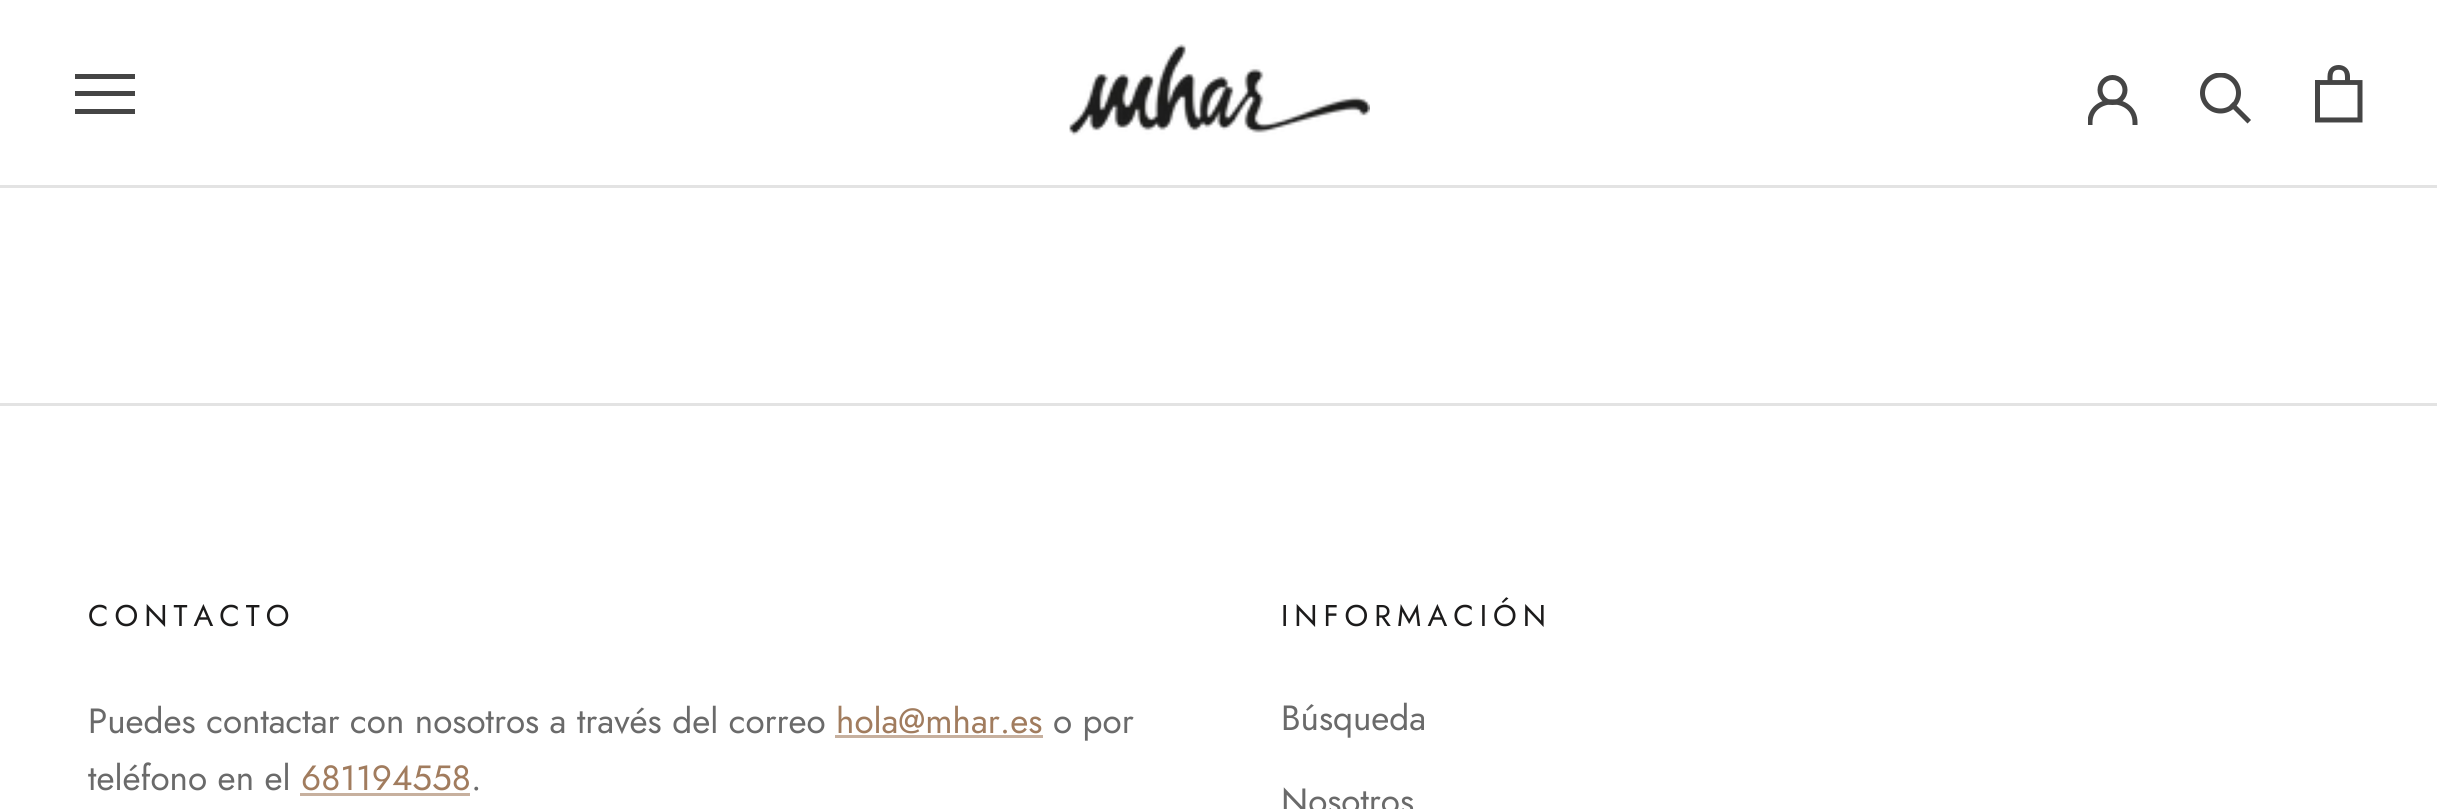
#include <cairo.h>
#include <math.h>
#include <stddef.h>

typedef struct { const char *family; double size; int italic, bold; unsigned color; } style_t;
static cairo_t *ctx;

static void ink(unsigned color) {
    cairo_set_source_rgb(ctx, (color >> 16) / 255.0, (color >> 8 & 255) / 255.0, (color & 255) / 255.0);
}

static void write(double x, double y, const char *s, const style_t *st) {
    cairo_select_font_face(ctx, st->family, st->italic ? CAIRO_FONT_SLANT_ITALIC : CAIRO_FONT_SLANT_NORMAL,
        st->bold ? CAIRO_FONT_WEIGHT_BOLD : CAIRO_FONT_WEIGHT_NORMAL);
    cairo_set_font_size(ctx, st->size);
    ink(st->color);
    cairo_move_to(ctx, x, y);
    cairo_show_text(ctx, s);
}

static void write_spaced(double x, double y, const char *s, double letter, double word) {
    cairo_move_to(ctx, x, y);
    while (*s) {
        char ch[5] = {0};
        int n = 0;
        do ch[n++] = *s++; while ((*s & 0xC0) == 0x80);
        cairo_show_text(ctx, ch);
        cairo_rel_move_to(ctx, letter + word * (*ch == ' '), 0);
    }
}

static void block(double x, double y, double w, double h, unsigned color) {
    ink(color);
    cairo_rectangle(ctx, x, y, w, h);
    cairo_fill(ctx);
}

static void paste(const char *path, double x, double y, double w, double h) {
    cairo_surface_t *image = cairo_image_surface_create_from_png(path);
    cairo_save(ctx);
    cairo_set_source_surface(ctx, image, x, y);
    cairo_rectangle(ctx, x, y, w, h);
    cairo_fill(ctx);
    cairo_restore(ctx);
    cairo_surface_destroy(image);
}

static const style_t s1 = {"Jost", 35, 0, 0, 0x6a6a6a};
static const style_t s2 = {"Jost", 35, 0, 0, 0xa17c5e};

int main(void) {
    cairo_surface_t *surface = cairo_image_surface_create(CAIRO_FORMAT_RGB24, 2437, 809);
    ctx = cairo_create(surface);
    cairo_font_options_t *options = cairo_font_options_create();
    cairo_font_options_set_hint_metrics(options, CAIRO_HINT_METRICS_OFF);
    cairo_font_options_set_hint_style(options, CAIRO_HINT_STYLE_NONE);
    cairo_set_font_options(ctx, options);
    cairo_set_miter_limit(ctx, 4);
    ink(0xffffff);
    cairo_paint(ctx);
    block(0, 185, 2437, 3, 0xe3e3e3);
    ink(0x454545);
    cairo_new_path(ctx);
    cairo_move_to(ctx, 75, 114);
    cairo_line_to(ctx, 75, 109);
    cairo_line_to(ctx, 135, 109);
    cairo_line_to(ctx, 135, 114);
    cairo_close_path(ctx);
    cairo_move_to(ctx, 75, 91);
    cairo_line_to(ctx, 135, 91);
    cairo_line_to(ctx, 135, 96);
    cairo_line_to(ctx, 75, 96);
    cairo_close_path(ctx);
    cairo_move_to(ctx, 75, 74);
    cairo_line_to(ctx, 135, 74);
    cairo_line_to(ctx, 135, 79);
    cairo_line_to(ctx, 75, 79);
    cairo_close_path(ctx);
    cairo_fill(ctx);
    paste("pic1.png", 1069, 44, 301, 92);
    cairo_save(ctx);
    cairo_rectangle(ctx, 2088, 75, 50, 50);
    cairo_clip(ctx);
    cairo_new_path(ctx);
    cairo_move_to(ctx, 2090, 122.5);
    cairo_curve_to(ctx, 2090, 95, 2135, 95, 2135, 122.5);
    cairo_set_line_width(ctx, 5);
    cairo_set_line_cap(ctx, CAIRO_LINE_CAP_SQUARE);
    cairo_stroke(ctx);
    cairo_restore(ctx);
    cairo_arc(ctx, 2112.5, 90, 12.5, 0, 2 * M_PI);
    cairo_set_line_width(ctx, 5);
    cairo_stroke(ctx);
    cairo_new_path(ctx);
    cairo_move_to(ctx, 2247.5, 120);
    cairo_line_to(ctx, 2233, 105.5);
    cairo_set_line_cap(ctx, CAIRO_LINE_CAP_SQUARE);
    cairo_stroke(ctx);
    cairo_save(ctx);
    cairo_rectangle(ctx, 2200, 73, 53, 52);
    cairo_clip(ctx);
    cairo_arc(ctx, 2220.5, 93, 18, 0, 2 * M_PI);
    cairo_set_line_cap(ctx, CAIRO_LINE_CAP_BUTT);
    cairo_stroke(ctx);
    cairo_restore(ctx);
    paste("pic2.png", 2315, 65, 48, 58);
    block(0, 403, 2437, 3, 0xe3e3e3);
    cairo_select_font_face(ctx, "Jost", CAIRO_FONT_SLANT_NORMAL, CAIRO_FONT_WEIGHT_NORMAL);
    cairo_set_font_size(ctx, 30);
    ink(0x1c1b1b);
    write_spaced(88, 626, "CONTACTO", 6, 0);
    write(88, 733, "Puedes contactar con nosotros a través del correo", &s1);
    write(836, 733, "hola@mhar.es", &s2);
    block(835, 735, 208, 3, 0xc7b09e);
    write(1053, 733, "o por", &s1);
    write(88, 790, "teléfono en el", &s1);
    write(301, 790, "681194558", &s2);
    block(300, 793, 170, 3, 0xc7b09e);
    write(471, 790, ".", &s1);
    cairo_set_font_size(ctx, 30);
    ink(0x1c1b1b);
    write_spaced(1281, 626, "INFORMACIÓN", 6, 0);
    write(1281, 730, "Búsqueda", &s1);
    write(1281, 813, "Nosotros", &s1);
    cairo_surface_write_to_png(surface, "screenshot.png");
    cairo_font_options_destroy(options);
    cairo_destroy(ctx);
    cairo_surface_destroy(surface);
    return 0;
}
